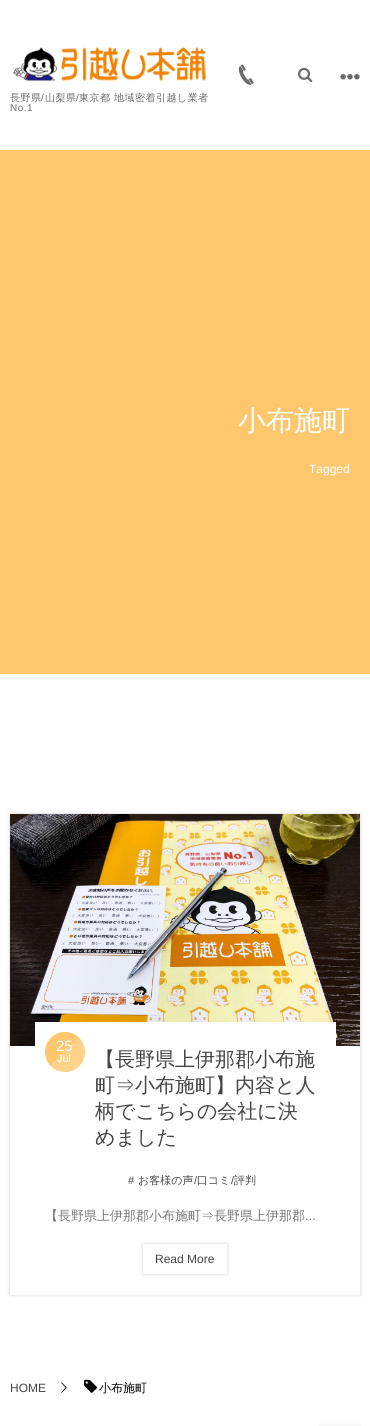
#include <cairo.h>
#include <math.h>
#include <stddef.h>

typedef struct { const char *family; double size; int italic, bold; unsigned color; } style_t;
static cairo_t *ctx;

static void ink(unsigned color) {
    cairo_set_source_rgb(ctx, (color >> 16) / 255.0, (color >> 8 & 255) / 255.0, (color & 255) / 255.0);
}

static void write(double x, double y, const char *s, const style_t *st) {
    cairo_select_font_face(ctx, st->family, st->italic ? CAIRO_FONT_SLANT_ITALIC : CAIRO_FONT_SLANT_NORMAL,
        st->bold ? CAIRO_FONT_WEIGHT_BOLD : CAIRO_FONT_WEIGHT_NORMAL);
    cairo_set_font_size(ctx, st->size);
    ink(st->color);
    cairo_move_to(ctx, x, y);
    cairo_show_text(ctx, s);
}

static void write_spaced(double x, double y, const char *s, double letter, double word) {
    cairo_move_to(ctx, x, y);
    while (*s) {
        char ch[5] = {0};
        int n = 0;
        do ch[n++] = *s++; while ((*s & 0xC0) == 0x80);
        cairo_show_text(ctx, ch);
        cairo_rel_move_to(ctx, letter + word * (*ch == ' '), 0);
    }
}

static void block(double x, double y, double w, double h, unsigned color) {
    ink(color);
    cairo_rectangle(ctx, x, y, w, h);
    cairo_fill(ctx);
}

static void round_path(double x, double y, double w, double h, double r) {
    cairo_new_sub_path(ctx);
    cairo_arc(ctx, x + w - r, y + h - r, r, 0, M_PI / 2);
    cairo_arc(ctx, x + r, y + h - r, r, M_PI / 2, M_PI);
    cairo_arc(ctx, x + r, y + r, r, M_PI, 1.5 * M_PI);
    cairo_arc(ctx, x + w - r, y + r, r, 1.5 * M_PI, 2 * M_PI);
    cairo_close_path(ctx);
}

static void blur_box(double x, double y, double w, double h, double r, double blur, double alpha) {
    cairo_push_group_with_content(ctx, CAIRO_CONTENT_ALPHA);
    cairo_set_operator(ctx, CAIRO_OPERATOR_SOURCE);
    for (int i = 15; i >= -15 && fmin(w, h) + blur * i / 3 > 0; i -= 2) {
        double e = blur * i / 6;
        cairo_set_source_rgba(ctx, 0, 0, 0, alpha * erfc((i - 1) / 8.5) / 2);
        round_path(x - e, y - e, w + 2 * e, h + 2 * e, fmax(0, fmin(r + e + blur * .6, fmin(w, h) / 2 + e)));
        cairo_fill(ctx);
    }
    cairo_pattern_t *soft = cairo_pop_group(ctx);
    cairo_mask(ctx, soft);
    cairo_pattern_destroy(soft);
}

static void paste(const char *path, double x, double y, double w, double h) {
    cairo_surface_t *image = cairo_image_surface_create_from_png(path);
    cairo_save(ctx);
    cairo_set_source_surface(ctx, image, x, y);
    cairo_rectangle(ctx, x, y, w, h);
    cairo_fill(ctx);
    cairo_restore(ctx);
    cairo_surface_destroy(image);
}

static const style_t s1 = {"WenQuanYi Zen Hei Medium", 28, 0, 0, 0xffffff};
static const style_t s2 = {"Liberation Sans", 12, 0, 0, 0xffffff};
static const style_t s3 = {"Liberation Sans", 15, 0, 0, 0xffffff};
static const style_t s4 = {"Liberation Sans", 11, 0, 0, 0xffffff};
static const style_t s5 = {"WenQuanYi Zen Hei Medium", 20, 0, 0, 0x444444};
static const style_t s6 = {"Liberation Sans", 11, 0, 0, 0x444444};
static const style_t s7 = {"WenQuanYi Zen Hei Medium", 11, 0, 0, 0x444444};
static const style_t s8 = {"WenQuanYi Zen Hei Medium", 13, 0, 0, 0x757575};
static const style_t s9 = {"Liberation Sans", 13, 0, 0, 0x757575};
static const style_t s10 = {"Liberation Sans", 12, 0, 0, 0x444444};
static const style_t s11 = {"WenQuanYi Zen Hei Medium", 12, 0, 0, 0x000000};

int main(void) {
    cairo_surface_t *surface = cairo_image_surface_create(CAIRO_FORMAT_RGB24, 370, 1426);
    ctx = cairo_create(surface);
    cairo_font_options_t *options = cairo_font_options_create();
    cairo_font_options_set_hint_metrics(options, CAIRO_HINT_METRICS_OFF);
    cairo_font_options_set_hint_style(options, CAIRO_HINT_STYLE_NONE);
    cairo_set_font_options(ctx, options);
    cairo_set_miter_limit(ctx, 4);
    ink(0xffffff);
    cairo_paint(ctx);
    paste("pic1.png", 238, 64, 16, 21);
    paste("pic2.png", 298, 67, 15, 16);
    paste("pic3.png", 340, 74, 20, 6);
    paste("pic4.png", 13, 47, 193, 35);
    cairo_select_font_face(ctx, "WenQuanYi Zen Hei Medium", CAIRO_FONT_SLANT_NORMAL, CAIRO_FONT_WEIGHT_NORMAL);
    cairo_set_font_size(ctx, 10);
    ink(0x6a6a6a);
    write_spaced(10, 101, "長野県 山梨県", 0.5, 0);
    write_spaced(79, 101, "東京都 地域密着引越し業者", 0.5, 0);
    cairo_select_font_face(ctx, "Liberation Sans", CAIRO_FONT_SLANT_NORMAL, CAIRO_FONT_WEIGHT_NORMAL);
    write_spaced(41, 101, "/", 0.5, 0);
    write_spaced(76, 101, "/", 0.5, 0);
    write_spaced(10, 111, "No.1", 0.5, 0);
    block(0, 150, 370, 524, 0xffc76d);
    write(238, 430, "小布施町", &s1);
    write(309, 473, "Tagged", &s2);
    cairo_save(ctx);
    cairo_set_fill_rule(ctx, CAIRO_FILL_RULE_EVEN_ODD);
    cairo_new_path(ctx);
    cairo_move_to(ctx, 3, 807);
    cairo_line_to(ctx, 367, 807);
    cairo_line_to(ctx, 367, 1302);
    cairo_line_to(ctx, 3, 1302);
    cairo_close_path(ctx);
    cairo_move_to(ctx, 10, 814);
    cairo_line_to(ctx, 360, 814);
    cairo_line_to(ctx, 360, 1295);
    cairo_line_to(ctx, 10, 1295);
    cairo_close_path(ctx);
    cairo_clip(ctx);
    ink(0x444444);
    blur_box(10, 814, 350, 481, 0, 2, 0.24);
    cairo_restore(ctx);
    paste("pic5.png", 10, 814, 350, 232);
    block(35, 1022, 301, 24, 0xffffff);
    ink(0xffc76d);
    cairo_arc(ctx, 65, 1052, 20, 0, 2 * M_PI);
    cairo_fill(ctx);
    write(56, 1051, "25", &s3);
    write(57, 1062, "Jul", &s4);
    cairo_set_source_rgba(ctx, 1, 1, 1, 0.2);
    cairo_new_path(ctx);
    cairo_move_to(ctx, 78, 1038);
    cairo_line_to(ctx, 82.5, 1042.5);
    cairo_curve_to(ctx, 84, 1044.5, 84.5, 1047, 85, 1049.5);
    cairo_curve_to(ctx, 87.5, 1069, 63.5, 1079.5, 50.5, 1065.5);
    cairo_close_path(ctx);
    cairo_fill(ctx);
    write(95, 1066, "【長野県上伊那郡小布施", &s5);
    write(95, 1092, "町⇒小布施町】内容と人", &s5);
    write(95, 1118, "柄でこちらの会社に決", &s5);
    write(95, 1144, "めました", &s5);
    write(128, 1184, "#", &s6);
    write(138, 1184, "お客様の声 口コミ", &s7);
    write(231, 1184, "/", &s6);
    write(234, 1184, "評判", &s7);
    write(194, 1184, "/", &s6);
    write(45, 1220, "【長野県上伊那郡小布施町⇒長野県上伊那郡", &s8);
    write(305, 1220, "...", &s9);
    cairo_save(ctx);
    cairo_set_fill_rule(ctx, CAIRO_FILL_RULE_EVEN_ODD);
    cairo_new_path(ctx);
    cairo_move_to(ctx, 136, 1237);
    cairo_line_to(ctx, 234, 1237);
    cairo_line_to(ctx, 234, 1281);
    cairo_line_to(ctx, 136, 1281);
    cairo_close_path(ctx);
    cairo_move_to(ctx, 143, 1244);
    cairo_line_to(ctx, 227, 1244);
    cairo_line_to(ctx, 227, 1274);
    cairo_line_to(ctx, 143, 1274);
    cairo_close_path(ctx);
    cairo_clip(ctx);
    ink(0x444444);
    blur_box(143, 1244, 84, 30, 0, 2, 0.24);
    cairo_restore(ctx);
    write(155, 1263, "Read More", &s10);
    write(10, 1392, "HOME", &s10);
    paste("pic6.png", 61, 1382, 6, 11);
    paste("pic7.png", 84, 1379, 13, 14);
    write(99, 1392, "小布施町", &s11);
    ink(0x444444);
    blur_box(320, 1426, 40, 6, 0, 2, 0.14);
    cairo_surface_write_to_png(surface, "screenshot.png");
    cairo_font_options_destroy(options);
    cairo_destroy(ctx);
    cairo_surface_destroy(surface);
    return 0;
}
